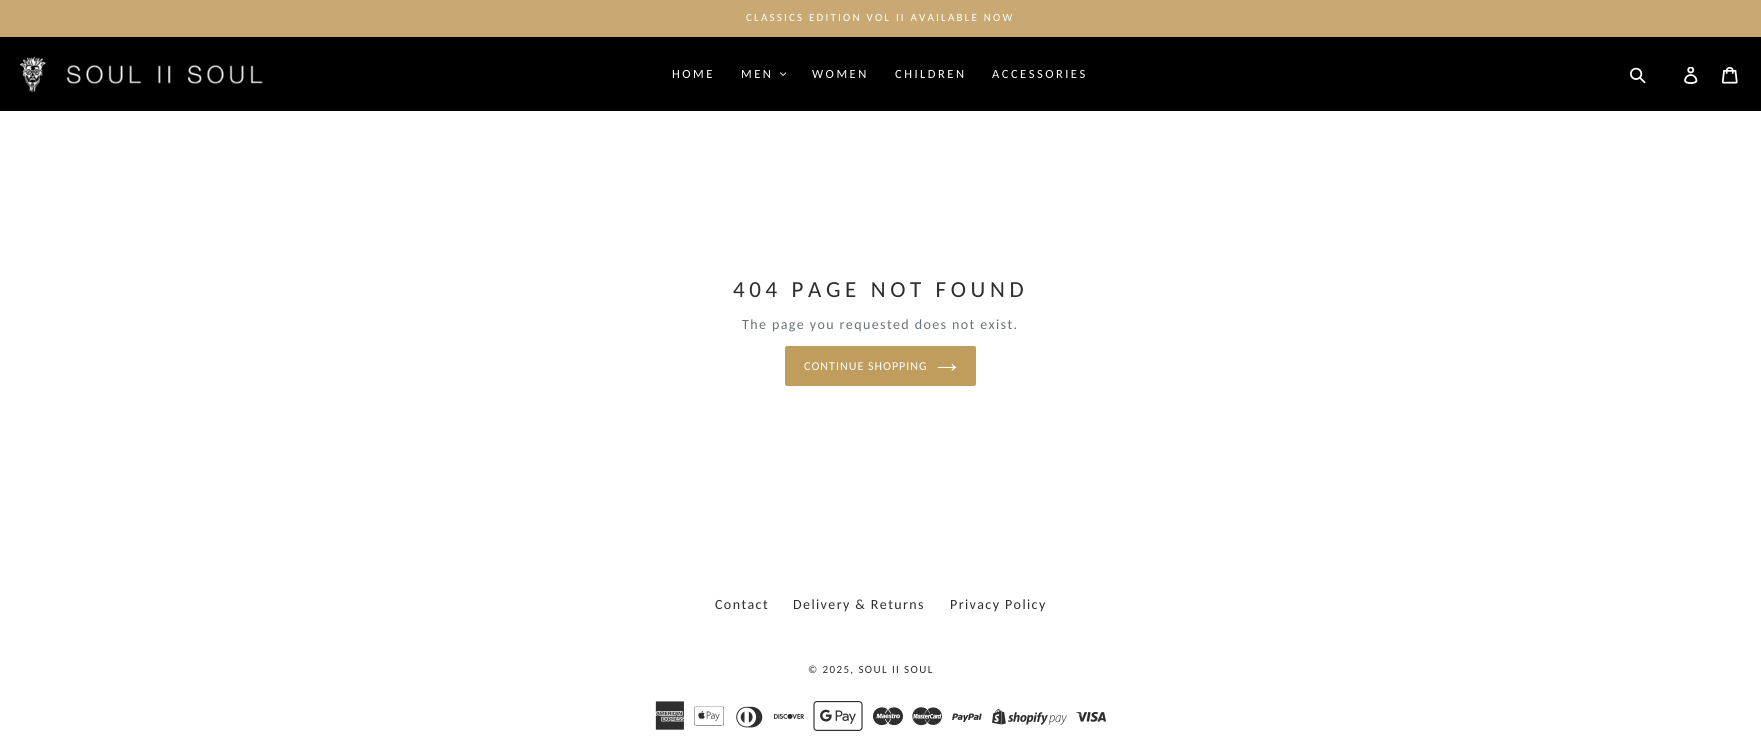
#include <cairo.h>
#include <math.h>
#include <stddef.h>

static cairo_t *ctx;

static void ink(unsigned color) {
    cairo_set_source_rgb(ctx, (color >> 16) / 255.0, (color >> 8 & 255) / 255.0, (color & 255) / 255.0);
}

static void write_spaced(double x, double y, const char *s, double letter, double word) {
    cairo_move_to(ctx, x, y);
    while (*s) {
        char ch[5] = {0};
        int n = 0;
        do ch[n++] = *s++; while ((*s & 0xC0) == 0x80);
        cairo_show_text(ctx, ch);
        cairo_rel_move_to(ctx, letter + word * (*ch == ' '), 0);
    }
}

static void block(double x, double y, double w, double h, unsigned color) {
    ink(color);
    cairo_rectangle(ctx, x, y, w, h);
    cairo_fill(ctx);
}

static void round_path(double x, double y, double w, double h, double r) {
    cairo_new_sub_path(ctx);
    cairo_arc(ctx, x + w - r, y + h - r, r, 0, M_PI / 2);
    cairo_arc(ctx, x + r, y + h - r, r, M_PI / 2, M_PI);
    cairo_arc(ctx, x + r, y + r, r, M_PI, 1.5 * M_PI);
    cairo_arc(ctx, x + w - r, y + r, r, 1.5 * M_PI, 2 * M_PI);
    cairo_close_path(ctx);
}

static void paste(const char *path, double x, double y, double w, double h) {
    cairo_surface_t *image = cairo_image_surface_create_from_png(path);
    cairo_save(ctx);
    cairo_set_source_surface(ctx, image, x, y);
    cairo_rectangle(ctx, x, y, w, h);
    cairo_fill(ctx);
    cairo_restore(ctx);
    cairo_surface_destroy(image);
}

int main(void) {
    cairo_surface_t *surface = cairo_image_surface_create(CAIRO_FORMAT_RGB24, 1761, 741);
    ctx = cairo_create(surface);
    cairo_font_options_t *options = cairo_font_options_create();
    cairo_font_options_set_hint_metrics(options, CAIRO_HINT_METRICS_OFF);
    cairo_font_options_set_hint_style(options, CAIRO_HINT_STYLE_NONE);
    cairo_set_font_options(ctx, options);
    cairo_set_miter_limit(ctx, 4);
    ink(0xffffff);
    cairo_paint(ctx);
    block(0, 0, 1761, 37, 0xc9a973);
    cairo_select_font_face(ctx, "Carlito", CAIRO_FONT_SLANT_NORMAL, CAIRO_FONT_WEIGHT_NORMAL);
    cairo_set_font_size(ctx, 11);
    ink(0xffffff);
    write_spaced(746, 21, "CLASSICS EDITION VOL II AVAILABLE NOW", 2.2, 0);
    block(0, 37, 1761, 74, 0x000000);
    paste("pic1.png", 20, 56, 243, 36);
    cairo_set_font_size(ctx, 12.5);
    ink(0xffffff);
    write_spaced(672, 78, "HOME", 2.5, 0);
    write_spaced(741, 78, "MEN", 2.5, 0);
    paste("pic2.png", 780, 72, 7, 4);
    write_spaced(812, 78, "WOMEN", 2.5, 0);
    write_spaced(895, 78, "CHILDREN", 2.5, 0);
    write_spaced(992, 78, "ACCESSORIES", 2.5, 0);
    paste("pic3.png", 1630, 67, 16, 17);
    paste("pic4.png", 1684, 67, 14, 17);
    paste("pic5.png", 1721, 67, 17, 17);
    cairo_set_font_size(ctx, 23);
    ink(0x2e2e2e);
    write_spaced(733, 297, "404 PAGE NOT FOUND", 4.6, 0);
    cairo_set_font_size(ctx, 14);
    ink(0x69727b);
    write_spaced(742, 329, "The page you requested does not exist.", 1.4, 0);
    ink(0xc09c5d);
    round_path(785, 346, 191, 40, 2);
    cairo_fill(ctx);
    cairo_set_font_size(ctx, 12);
    ink(0xffffff);
    write_spaced(804, 370, "CONTINUE SHOPPING", 1, 0);
    paste("pic6.png", 937, 363, 20, 8);
    cairo_set_font_size(ctx, 14);
    ink(0x2e2e2e);
    write_spaced(715, 609, "Contact", 1.4, 0);
    write_spaced(793, 609, "Delivery & Returns", 1.4, 0);
    write_spaced(950, 609, "Privacy Policy", 1.4, 0);
    cairo_set_font_size(ctx, 11);
    write_spaced(808, 673, "© 2025, SOUL II SOUL", 1.4, 0);
    paste("pic7.png", 655, 701, 30, 29);
    paste("pic8.png", 694, 706, 30, 20);
    paste("pic9.png", 736, 706, 27, 22);
    paste("pic10.png", 774, 713, 30, 6);
    paste("pic11.png", 813, 701, 50, 30);
    paste("pic12.png", 873, 707, 30, 19);
    paste("pic13.png", 912, 707, 30, 19);
    paste("pic14.png", 952, 713, 30, 9);
    paste("pic15.png", 992, 709, 75, 16);
    paste("pic16.png", 1076, 712, 30, 10);
    cairo_surface_write_to_png(surface, "screenshot.png");
    cairo_font_options_destroy(options);
    cairo_destroy(ctx);
    cairo_surface_destroy(surface);
    return 0;
}
